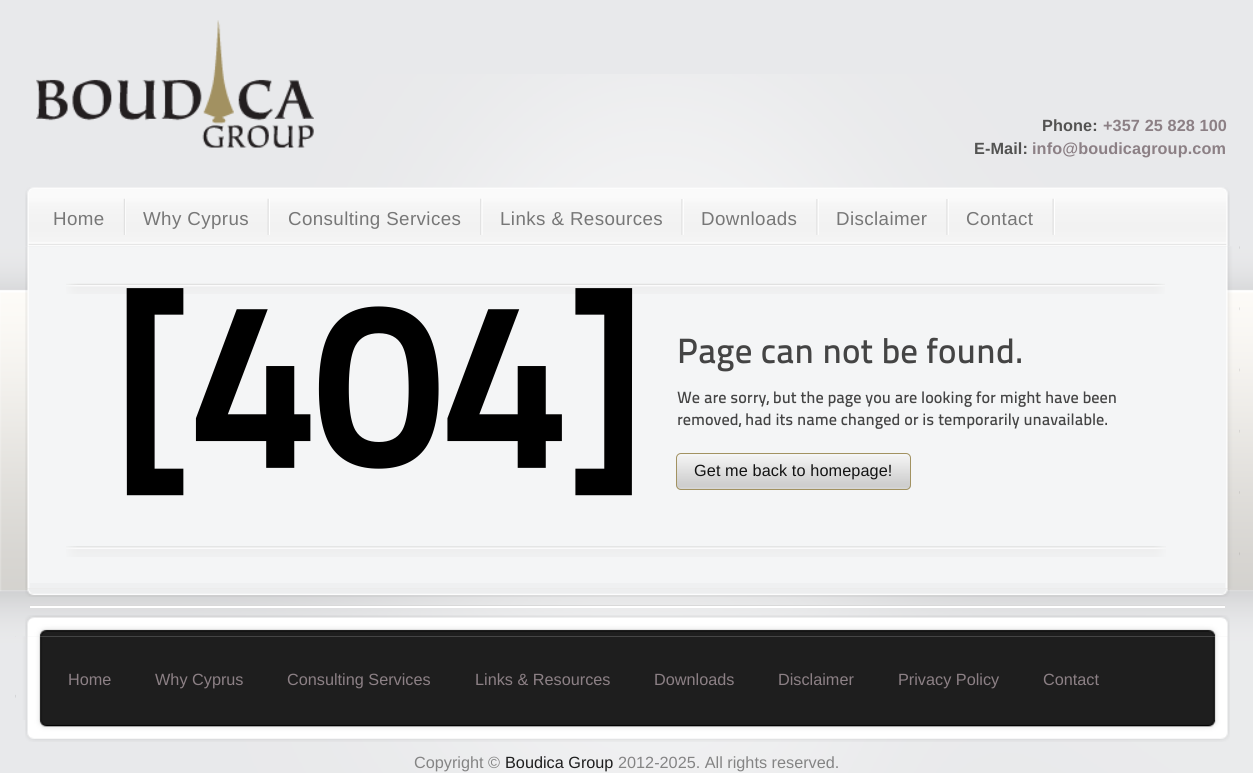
#include <cairo.h>
#include <math.h>
#include <stddef.h>

typedef struct { const char *family; double size; int italic, bold; unsigned color; } style_t;
static cairo_t *ctx;

static void ink(unsigned color) {
    cairo_set_source_rgb(ctx, (color >> 16) / 255.0, (color >> 8 & 255) / 255.0, (color & 255) / 255.0);
}

static void write(double x, double y, const char *s, const style_t *st) {
    cairo_select_font_face(ctx, st->family, st->italic ? CAIRO_FONT_SLANT_ITALIC : CAIRO_FONT_SLANT_NORMAL,
        st->bold ? CAIRO_FONT_WEIGHT_BOLD : CAIRO_FONT_WEIGHT_NORMAL);
    cairo_set_font_size(ctx, st->size);
    ink(st->color);
    cairo_move_to(ctx, x, y);
    cairo_show_text(ctx, s);
}

static void write_spaced(double x, double y, const char *s, double letter, double word) {
    cairo_move_to(ctx, x, y);
    while (*s) {
        char ch[5] = {0};
        int n = 0;
        do ch[n++] = *s++; while ((*s & 0xC0) == 0x80);
        cairo_show_text(ctx, ch);
        cairo_rel_move_to(ctx, letter + word * (*ch == ' '), 0);
    }
}

static void block(double x, double y, double w, double h, unsigned color) {
    ink(color);
    cairo_rectangle(ctx, x, y, w, h);
    cairo_fill(ctx);
}

static void round_path(double x, double y, double w, double h, double r) {
    cairo_new_sub_path(ctx);
    cairo_arc(ctx, x + w - r, y + h - r, r, 0, M_PI / 2);
    cairo_arc(ctx, x + r, y + h - r, r, M_PI / 2, M_PI);
    cairo_arc(ctx, x + r, y + r, r, M_PI, 1.5 * M_PI);
    cairo_arc(ctx, x + w - r, y + r, r, 1.5 * M_PI, 2 * M_PI);
    cairo_close_path(ctx);
}

static void paste(const char *path, double x, double y, double w, double h) {
    cairo_surface_t *image = cairo_image_surface_create_from_png(path);
    cairo_save(ctx);
    cairo_set_source_surface(ctx, image, x, y);
    cairo_rectangle(ctx, x, y, w, h);
    cairo_fill(ctx);
    cairo_restore(ctx);
    cairo_surface_destroy(image);
}

static const style_t s1 = {"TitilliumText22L", 237.5, 0, 1, 0x000000};
static const style_t s2 = {"TitilliumText22L Medium", 35, 0, 0, 0x444444};
static const style_t s3 = {"TitilliumText22L Medium", 16.25, 0, 0, 0x444444};
static const style_t s4 = {"Liberation Sans", 16.25, 0, 0, 0x8c8085};
static const style_t s5 = {"Liberation Sans", 16.25, 0, 0, 0x848484};
static const style_t s6 = {"Liberation Sans", 16.25, 0, 0, 0x1e1e1e};

int main(void) {
    cairo_surface_t *surface = cairo_image_surface_create(CAIRO_FORMAT_RGB24, 1253, 773);
    ctx = cairo_create(surface);
    cairo_font_options_t *options = cairo_font_options_create();
    cairo_font_options_set_hint_metrics(options, CAIRO_HINT_METRICS_OFF);
    cairo_font_options_set_hint_style(options, CAIRO_HINT_STYLE_NONE);
    cairo_set_font_options(ctx, options);
    cairo_set_miter_limit(ctx, 4);
    ink(0xe8e9eb);
    cairo_paint(ctx);
    paste("pic1.png", 0, 74, 1253, 699);
    paste("pic2.png", 36, 20, 278, 128);
    cairo_select_font_face(ctx, "Liberation Sans", CAIRO_FONT_SLANT_NORMAL, CAIRO_FONT_WEIGHT_BOLD);
    cairo_set_font_size(ctx, 16.25);
    ink(0x535352);
    write_spaced(1042, 131, "Phone:", 0.1, 0);
    ink(0x8c8085);
    write_spaced(1103, 131, "+357 25 828 100", 0.1, 0);
    ink(0x535352);
    write_spaced(974, 154, "E-Mail:", 0.1, 0);
    ink(0x8c8085);
    write_spaced(1032, 154, "info@boudicagroup.com", 0.1, 0);
    paste("pic3.png", 25, 187, 1205, 59);
    paste("pic4.png", 123, 198, 3, 37);
    cairo_select_font_face(ctx, "Liberation Sans", CAIRO_FONT_SLANT_NORMAL, CAIRO_FONT_WEIGHT_NORMAL);
    cairo_set_font_size(ctx, 18.75);
    ink(0x777777);
    write_spaced(53, 225, "Home", 0.4, 0);
    paste("pic5.png", 267, 198, 3, 37);
    write_spaced(143, 225, "Why Cyprus", 0.4, 0);
    paste("pic6.png", 480, 198, 3, 37);
    write_spaced(288, 225, "Consulting Services", 0.4, 0);
    paste("pic7.png", 681, 199, 3, 36);
    write_spaced(500, 225, "Links & Resources", 0.4, 0);
    paste("pic7.png", 816, 199, 3, 36);
    write_spaced(701, 225, "Downloads", 0.4, 0);
    paste("pic8.png", 946, 199, 3, 36);
    write_spaced(836, 225, "Disclaimer", 0.4, 0);
    paste("pic5.png", 1052, 198, 3, 37);
    write_spaced(966, 225, "Contact", 0.4, 0);
    paste("pic9.png", 25, 246, 1215, 343);
    block(30, 583, 1195, 5, 0xeff0f1);
    paste("pic10.png", 66, 283, 1099, 11);
    write(119, 466, "[404]", &s1);
    write(677, 363, "Page can not be found.", &s2);
    write(677, 403, "We are sorry, but the page you are looking for might have been", &s3);
    write(677, 425, "removed, had its name changed or is temporarily unavailable.", &s3);
    paste("pic11.png", 676, 456, 235, 34);
    round_path(676.5, 453.5, 234, 36, 4.5);
    ink(0xa29261);
    cairo_set_line_width(ctx, 1);
    cairo_stroke(ctx);
    cairo_select_font_face(ctx, "Liberation Sans", CAIRO_FONT_SLANT_NORMAL, CAIRO_FONT_WEIGHT_NORMAL);
    ink(0x131313);
    write_spaced(694, 476, "Get me back to homepage!", 0.1, 0);
    paste("pic12.png", 66, 546, 1100, 11);
    paste("pic13.png", 25, 589, 1205, 8);
    block(30, 606, 1195, 2, 0xffffff);
    block(30, 605, 1195, 1, 0xd9d9d9);
    paste("pic14.png", 25, 615, 1205, 22);
    paste("pic15.png", 15, 636, 1215, 84);
    write(68, 685, "Home", &s4);
    write(155, 685, "Why Cyprus", &s4);
    write(287, 685, "Consulting Services", &s4);
    write(475, 685, "Links & Resources", &s4);
    write(654, 685, "Downloads", &s4);
    write(778, 685, "Disclaimer", &s4);
    write(898, 685, "Privacy Policy", &s4);
    write(1043, 685, "Contact", &s4);
    paste("pic16.png", 25, 720, 1205, 22);
    write(414, 768, "Copyright ©", &s5);
    write(505, 768, "Boudica Group", &s6);
    write(618, 768, "2012-2025. All rights reserved.", &s5);
    cairo_surface_write_to_png(surface, "screenshot.png");
    cairo_font_options_destroy(options);
    cairo_destroy(ctx);
    cairo_surface_destroy(surface);
    return 0;
}
